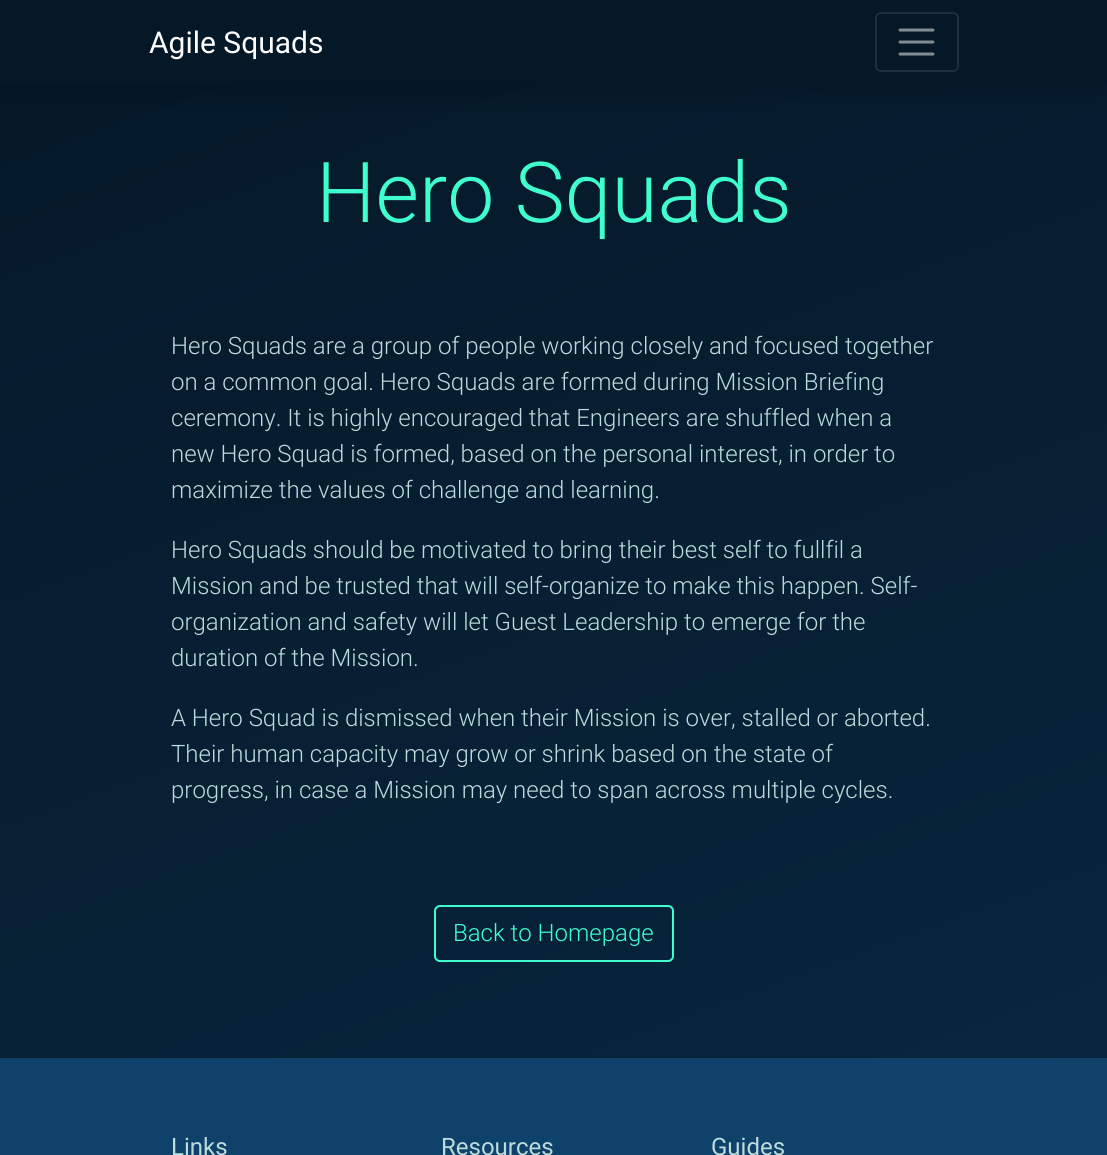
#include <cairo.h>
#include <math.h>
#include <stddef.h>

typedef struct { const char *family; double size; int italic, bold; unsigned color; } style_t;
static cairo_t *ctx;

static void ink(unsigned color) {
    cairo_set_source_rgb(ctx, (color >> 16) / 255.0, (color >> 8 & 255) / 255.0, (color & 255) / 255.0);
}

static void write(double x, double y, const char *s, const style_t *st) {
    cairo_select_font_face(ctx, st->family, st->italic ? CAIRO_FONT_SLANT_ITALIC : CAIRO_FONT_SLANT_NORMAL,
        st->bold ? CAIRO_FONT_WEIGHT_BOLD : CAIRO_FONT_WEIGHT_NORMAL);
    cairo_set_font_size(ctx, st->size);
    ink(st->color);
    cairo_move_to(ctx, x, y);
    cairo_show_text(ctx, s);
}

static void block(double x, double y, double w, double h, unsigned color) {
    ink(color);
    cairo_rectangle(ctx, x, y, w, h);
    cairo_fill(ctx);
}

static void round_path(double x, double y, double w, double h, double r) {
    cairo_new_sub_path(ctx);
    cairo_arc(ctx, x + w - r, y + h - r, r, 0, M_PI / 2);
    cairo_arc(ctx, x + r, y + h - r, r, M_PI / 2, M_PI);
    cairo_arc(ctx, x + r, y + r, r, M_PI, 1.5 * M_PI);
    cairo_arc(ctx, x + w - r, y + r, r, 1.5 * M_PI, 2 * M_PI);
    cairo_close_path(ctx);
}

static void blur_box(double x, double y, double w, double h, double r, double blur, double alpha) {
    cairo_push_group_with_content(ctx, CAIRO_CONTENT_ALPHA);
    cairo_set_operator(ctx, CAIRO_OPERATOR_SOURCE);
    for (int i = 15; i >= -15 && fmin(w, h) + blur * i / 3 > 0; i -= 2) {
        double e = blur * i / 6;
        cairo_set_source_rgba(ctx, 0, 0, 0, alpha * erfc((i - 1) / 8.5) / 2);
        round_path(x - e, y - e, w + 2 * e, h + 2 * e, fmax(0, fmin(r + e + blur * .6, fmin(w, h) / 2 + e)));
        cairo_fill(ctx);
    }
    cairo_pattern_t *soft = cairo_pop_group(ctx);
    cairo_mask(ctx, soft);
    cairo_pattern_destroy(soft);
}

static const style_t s1 = {"Roboto", 30, 0, 0, 0xffffff};
static const style_t s2 = {"Roboto Light", 84, 0, 0, 0x3fffcf};
static const style_t s3 = {"Roboto Light", 24, 0, 0, 0xbcdbdb};
static const style_t s4 = {"Roboto Light", 24, 0, 0, 0x3fffcf};
static const style_t s5 = {"Roboto", 24, 0, 0, 0xbcdbdb};

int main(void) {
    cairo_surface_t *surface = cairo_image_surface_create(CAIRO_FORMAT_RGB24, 1107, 1155);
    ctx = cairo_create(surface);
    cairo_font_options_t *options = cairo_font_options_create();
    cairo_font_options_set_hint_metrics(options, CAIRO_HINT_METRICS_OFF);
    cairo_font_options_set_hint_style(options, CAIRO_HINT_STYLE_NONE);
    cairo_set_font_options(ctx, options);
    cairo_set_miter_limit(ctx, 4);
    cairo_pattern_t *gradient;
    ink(0xffffff);
    cairo_paint(ctx);
    gradient = cairo_pattern_create_linear(259, -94, 848, 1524);
    cairo_pattern_add_color_stop_rgba(gradient, 0, 0.02, 0.094, 0.153, 1);
    cairo_pattern_add_color_stop_rgba(gradient, 0.84, 0.031, 0.149, 0.243, 1);
    cairo_set_source(ctx, gradient);
    cairo_pattern_destroy(gradient);
    cairo_rectangle(ctx, 0, 84, 1107, 974);
    cairo_fill(ctx);
    ink(0x000000);
    blur_box(0, 12, 1107, 84, 0, 12, 0.15);
    block(0, 0, 1107, 84, 0x051827);
    write(149, 53, "Agile Squads", &s1);
    round_path(876, 13, 82, 58, 5);
    ink(0x1e2f3d);
    cairo_stroke(ctx);
    cairo_new_path(ctx);
    cairo_move_to(ctx, 900, 30);
    cairo_line_to(ctx, 933, 30);
    cairo_move_to(ctx, 900, 42);
    cairo_line_to(ctx, 933, 42);
    cairo_move_to(ctx, 900, 54);
    cairo_line_to(ctx, 933, 54);
    ink(0x828c93);
    cairo_set_line_width(ctx, 3);
    cairo_set_line_cap(ctx, CAIRO_LINE_CAP_ROUND);
    cairo_stroke(ctx);
    write(316, 222, "Hero Squads", &s2);
    write(171, 354, "Hero Squads are a group of people working closely and focused together", &s3);
    write(171, 390, "on a common goal. Hero Squads are formed during Mission Briefing", &s3);
    write(171, 426, "ceremony. It is highly encouraged that Engineers are shuffled when a", &s3);
    write(171, 462, "new Hero Squad is formed, based on the personal interest, in order to", &s3);
    write(171, 498, "maximize the values of challenge and learning.", &s3);
    write(171, 558, "Hero Squads should be motivated to bring their best self to fullfil a", &s3);
    write(171, 594, "Mission and be trusted that will self-organize to make this happen. Self-", &s3);
    write(171, 630, "organization and safety will let Guest Leadership to emerge for the", &s3);
    write(171, 666, "duration of the Mission.", &s3);
    write(171, 726, "A Hero Squad is dismissed when their Mission is over, stalled or aborted.", &s3);
    write(171, 762, "Their human capacity may grow or shrink based on the state of", &s3);
    write(171, 798, "progress, in case a Mission may need to span across multiple cycles.", &s3);
    round_path(435, 906, 238, 55, 5);
    ink(0x3fffcf);
    cairo_set_line_width(ctx, 2);
    cairo_set_line_cap(ctx, CAIRO_LINE_CAP_BUTT);
    cairo_stroke(ctx);
    write(453, 941, "Back to Homepage", &s4);
    block(0, 1058, 1107, 97, 0x0e426b);
    write(171, 1155, "Links", &s5);
    write(441, 1155, "Resources", &s5);
    write(711, 1155, "Guides", &s5);
    cairo_surface_write_to_png(surface, "screenshot.png");
    cairo_font_options_destroy(options);
    cairo_destroy(ctx);
    cairo_surface_destroy(surface);
    return 0;
}
